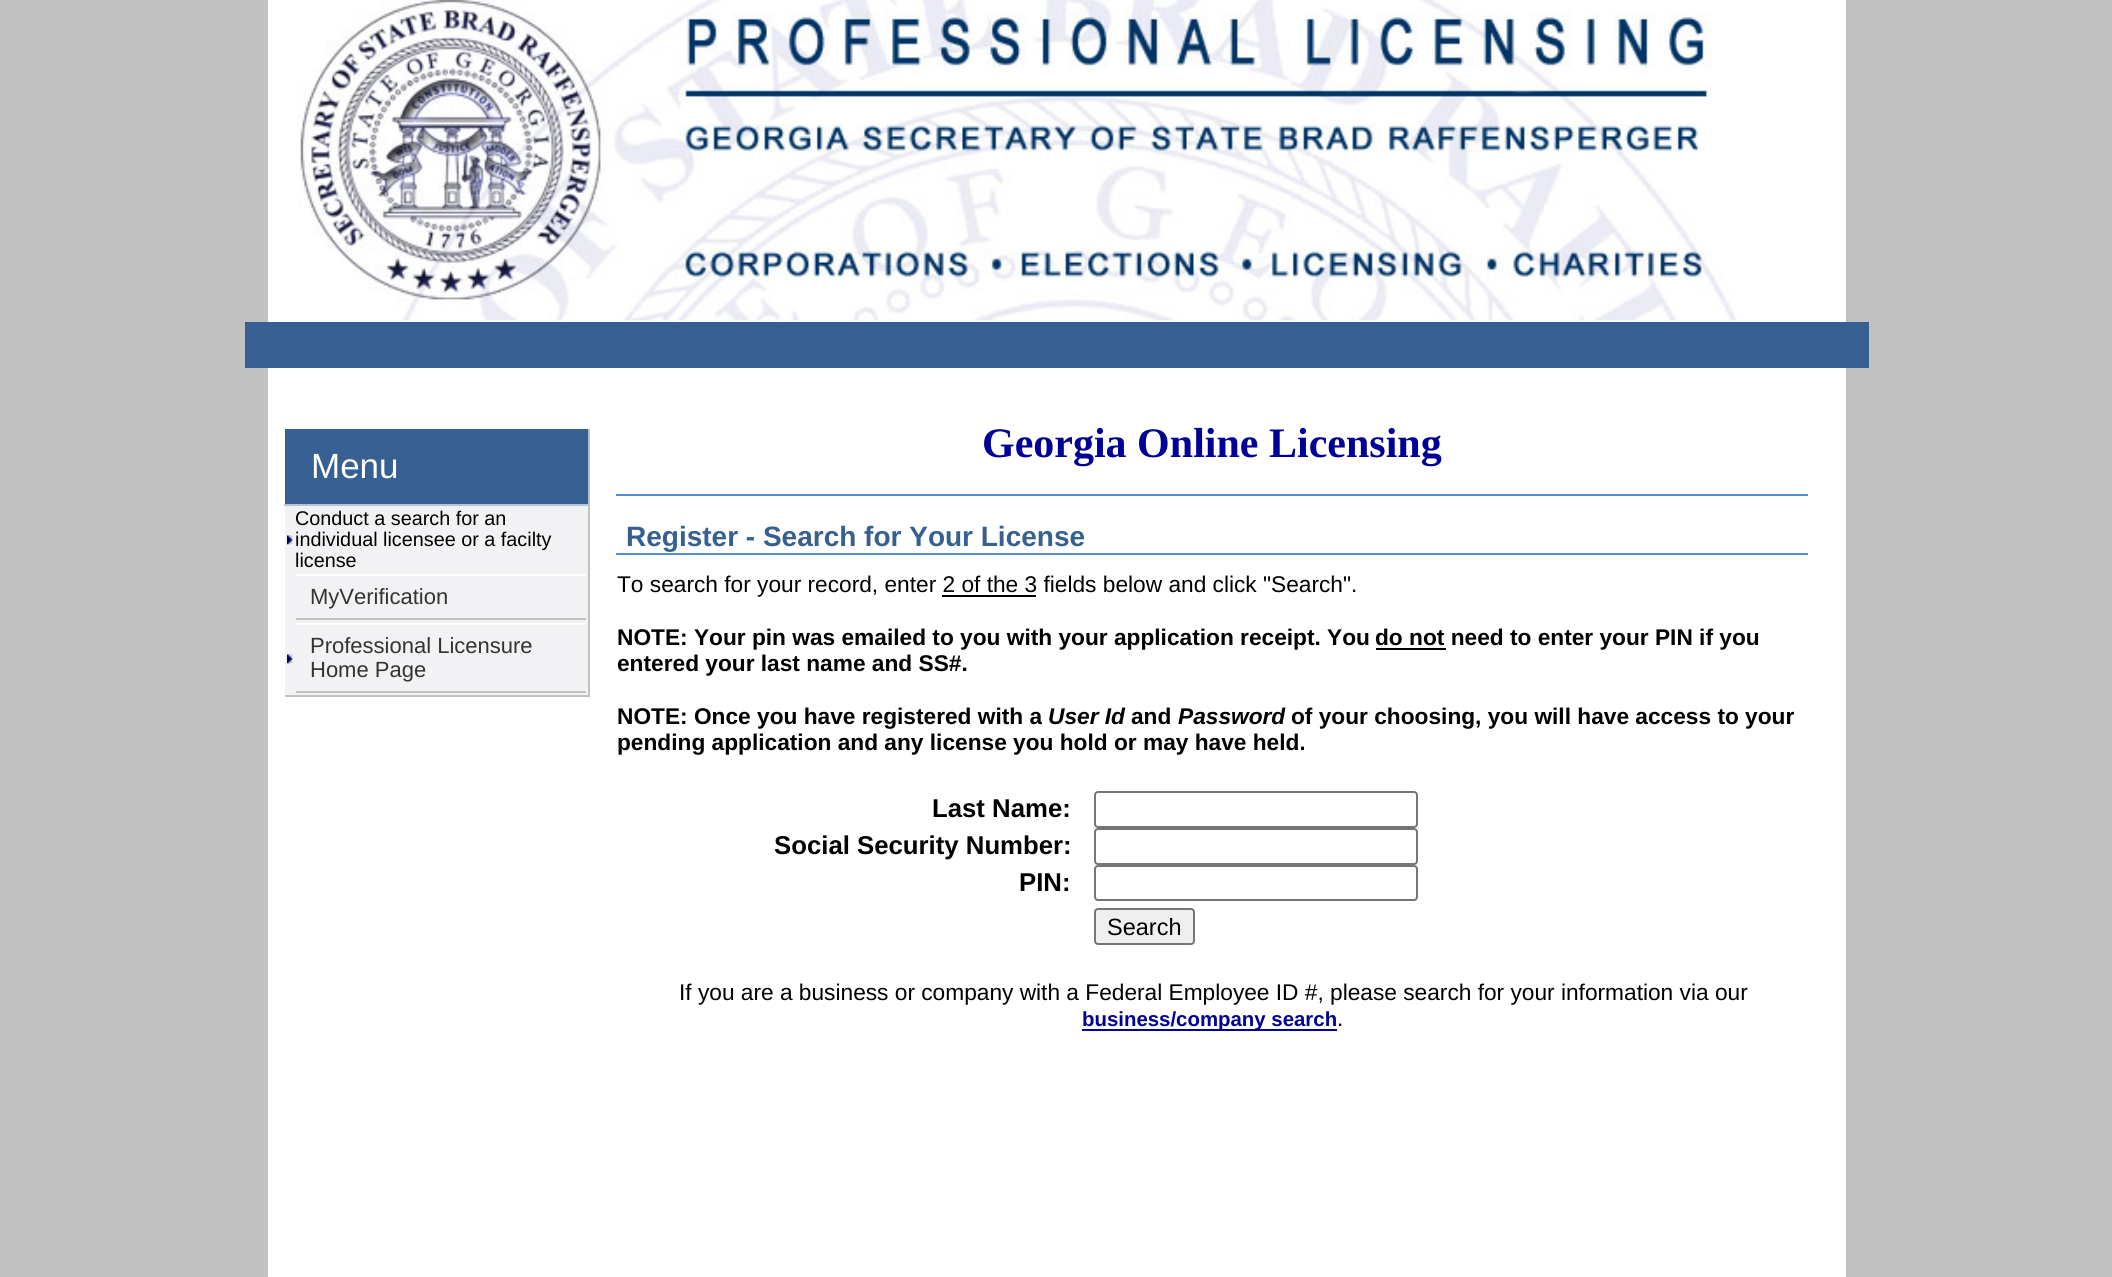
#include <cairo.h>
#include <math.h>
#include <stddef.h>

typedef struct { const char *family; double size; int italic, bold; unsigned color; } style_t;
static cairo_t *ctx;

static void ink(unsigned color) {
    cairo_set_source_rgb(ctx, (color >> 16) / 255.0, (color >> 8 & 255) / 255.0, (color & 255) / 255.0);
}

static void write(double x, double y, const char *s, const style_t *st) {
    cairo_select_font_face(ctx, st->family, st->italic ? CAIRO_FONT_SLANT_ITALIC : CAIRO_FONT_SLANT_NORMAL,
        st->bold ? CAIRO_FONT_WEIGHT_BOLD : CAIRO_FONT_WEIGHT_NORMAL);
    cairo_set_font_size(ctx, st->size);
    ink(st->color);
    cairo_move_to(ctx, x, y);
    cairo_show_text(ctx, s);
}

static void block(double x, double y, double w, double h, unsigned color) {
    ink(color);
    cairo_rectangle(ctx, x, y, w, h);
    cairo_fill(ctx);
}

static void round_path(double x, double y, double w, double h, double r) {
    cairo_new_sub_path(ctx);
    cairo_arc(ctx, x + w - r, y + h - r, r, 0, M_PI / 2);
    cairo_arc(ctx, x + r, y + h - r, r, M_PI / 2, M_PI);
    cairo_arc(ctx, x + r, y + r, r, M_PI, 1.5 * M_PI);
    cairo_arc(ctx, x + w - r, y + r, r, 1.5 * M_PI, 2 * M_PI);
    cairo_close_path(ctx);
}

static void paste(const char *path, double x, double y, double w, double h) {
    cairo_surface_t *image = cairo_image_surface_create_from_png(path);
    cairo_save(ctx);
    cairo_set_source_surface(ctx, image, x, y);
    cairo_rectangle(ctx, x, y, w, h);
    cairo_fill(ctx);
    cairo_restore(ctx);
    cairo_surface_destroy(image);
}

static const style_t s1 = {"Liberation Sans", 35, 0, 0, 0xffffff};
static const style_t s2 = {"Liberation Sans", 19.8, 0, 0, 0x000000};
static const style_t s3 = {"Liberation Sans", 22, 0, 0, 0x333333};
static const style_t s4 = {"Liberation Serif", 42, 0, 1, 0x000099};
static const style_t s5 = {"Liberation Sans", 28, 0, 1, 0x366092};
static const style_t s6 = {"Liberation Sans", 22.7, 0, 0, 0x000000};
static const style_t s7 = {"Liberation Sans", 22.7, 0, 1, 0x000000};
static const style_t s8 = {"Liberation Sans", 22.7, 1, 1, 0x000000};
static const style_t s9 = {"Liberation Sans", 25.75, 0, 1, 0x000000};
static const style_t s10 = {"Liberation Sans", 23.5, 0, 0, 0x000000};
static const style_t s11 = {"Liberation Sans", 20.4, 0, 1, 0x000099};

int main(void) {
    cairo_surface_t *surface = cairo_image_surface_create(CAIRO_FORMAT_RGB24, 2112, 1277);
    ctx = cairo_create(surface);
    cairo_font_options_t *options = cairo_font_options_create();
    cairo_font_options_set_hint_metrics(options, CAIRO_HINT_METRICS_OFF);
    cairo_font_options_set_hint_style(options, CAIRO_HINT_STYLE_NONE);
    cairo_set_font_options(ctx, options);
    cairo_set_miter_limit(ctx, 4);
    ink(0xc1c1c1);
    cairo_paint(ctx);
    block(268, 0, 1578, 1277, 0xffffff);
    block(245, 322, 1624, 46, 0x366092);
    paste("pic1.png", 298, 0, 1439, 321);
    block(285, 506, 303, 189, 0xf2f2f5);
    block(588, 429, 2, 268, 0xc1c1c1);
    block(285, 695, 305, 2, 0xc1c1c1);
    block(285, 429, 303, 75, 0x366092);
    block(284, 504, 306, 2, 0xb4c4d3);
    write(311, 478, "Menu", &s1);
    paste("pic2.png", 287, 535, 6, 10);
    write(295, 525, "Conduct a search for an", &s2);
    write(295, 546, "individual licensee or a facilty", &s2);
    write(295, 567, "license", &s2);
    block(296, 574, 290, 2, 0xfdfdfd);
    block(296, 618, 290, 2, 0xc1c1c1);
    write(310, 604, "MyVerification", &s3);
    paste("pic2.png", 287, 654, 6, 10);
    block(296, 623, 290, 2, 0xfdfdfd);
    block(296, 691, 290, 2, 0xc1c1c1);
    write(310, 653, "Professional Licensure", &s3);
    write(310, 677, "Home Page", &s3);
    block(616, 494, 1192, 2, 0x548dd4);
    write(982, 457, "Georgia Online Licensing", &s4);
    block(616, 553, 1192, 2, 0x548dd4);
    write(626, 546, "Register - Search for Your License", &s5);
    write(617, 592, "To search for your record, enter 2 of the 3 fields below and click \"Search\".", &s6);
    block(942, 595, 94, 2, 0x000000);
    write(617, 645, "NOTE: Your pin was emailed to you with your application receipt. You", &s7);
    block(1376, 648, 70, 2, 0x000000);
    write(1375, 645, "do not need to enter your PIN if you", &s7);
    write(617, 671, "entered your last name and SS#.", &s7);
    write(617, 724, "NOTE: Once you have registered with a", &s7);
    write(1048, 724, "User Id", &s8);
    write(1131, 724, "and", &s7);
    write(1178, 724, "Password", &s8);
    write(1291, 724, "of your choosing, you will have access to your", &s7);
    write(617, 750, "pending application and any license you hold or may have held.", &s7);
    write(932, 817, "Last Name:", &s9);
    round_path(1095, 792, 322, 35, 3);
    ink(0x767676);
    cairo_stroke(ctx);
    write(774, 854, "Social Security Number:", &s9);
    round_path(1095, 829, 322, 35, 3);
    ink(0x767676);
    cairo_stroke(ctx);
    write(1019, 891, "PIN:", &s9);
    round_path(1095, 866, 322, 34, 3);
    ink(0x767676);
    cairo_stroke(ctx);
    ink(0xefefef);
    round_path(1095, 909, 99, 35, 3);
    cairo_fill_preserve(ctx);
    ink(0x767676);
    cairo_stroke(ctx);
    write(1107, 935, "Search", &s10);
    write(679, 1000, "If you are a business or company with a Federal Employee ID #, please search for your information via our", &s6);
    block(1082, 1029, 255, 2, 0x000099);
    write(1082, 1026, "business/company search", &s11);
    write(1337, 1026, ".", &s6);
    cairo_surface_write_to_png(surface, "screenshot.png");
    cairo_font_options_destroy(options);
    cairo_destroy(ctx);
    cairo_surface_destroy(surface);
    return 0;
}
